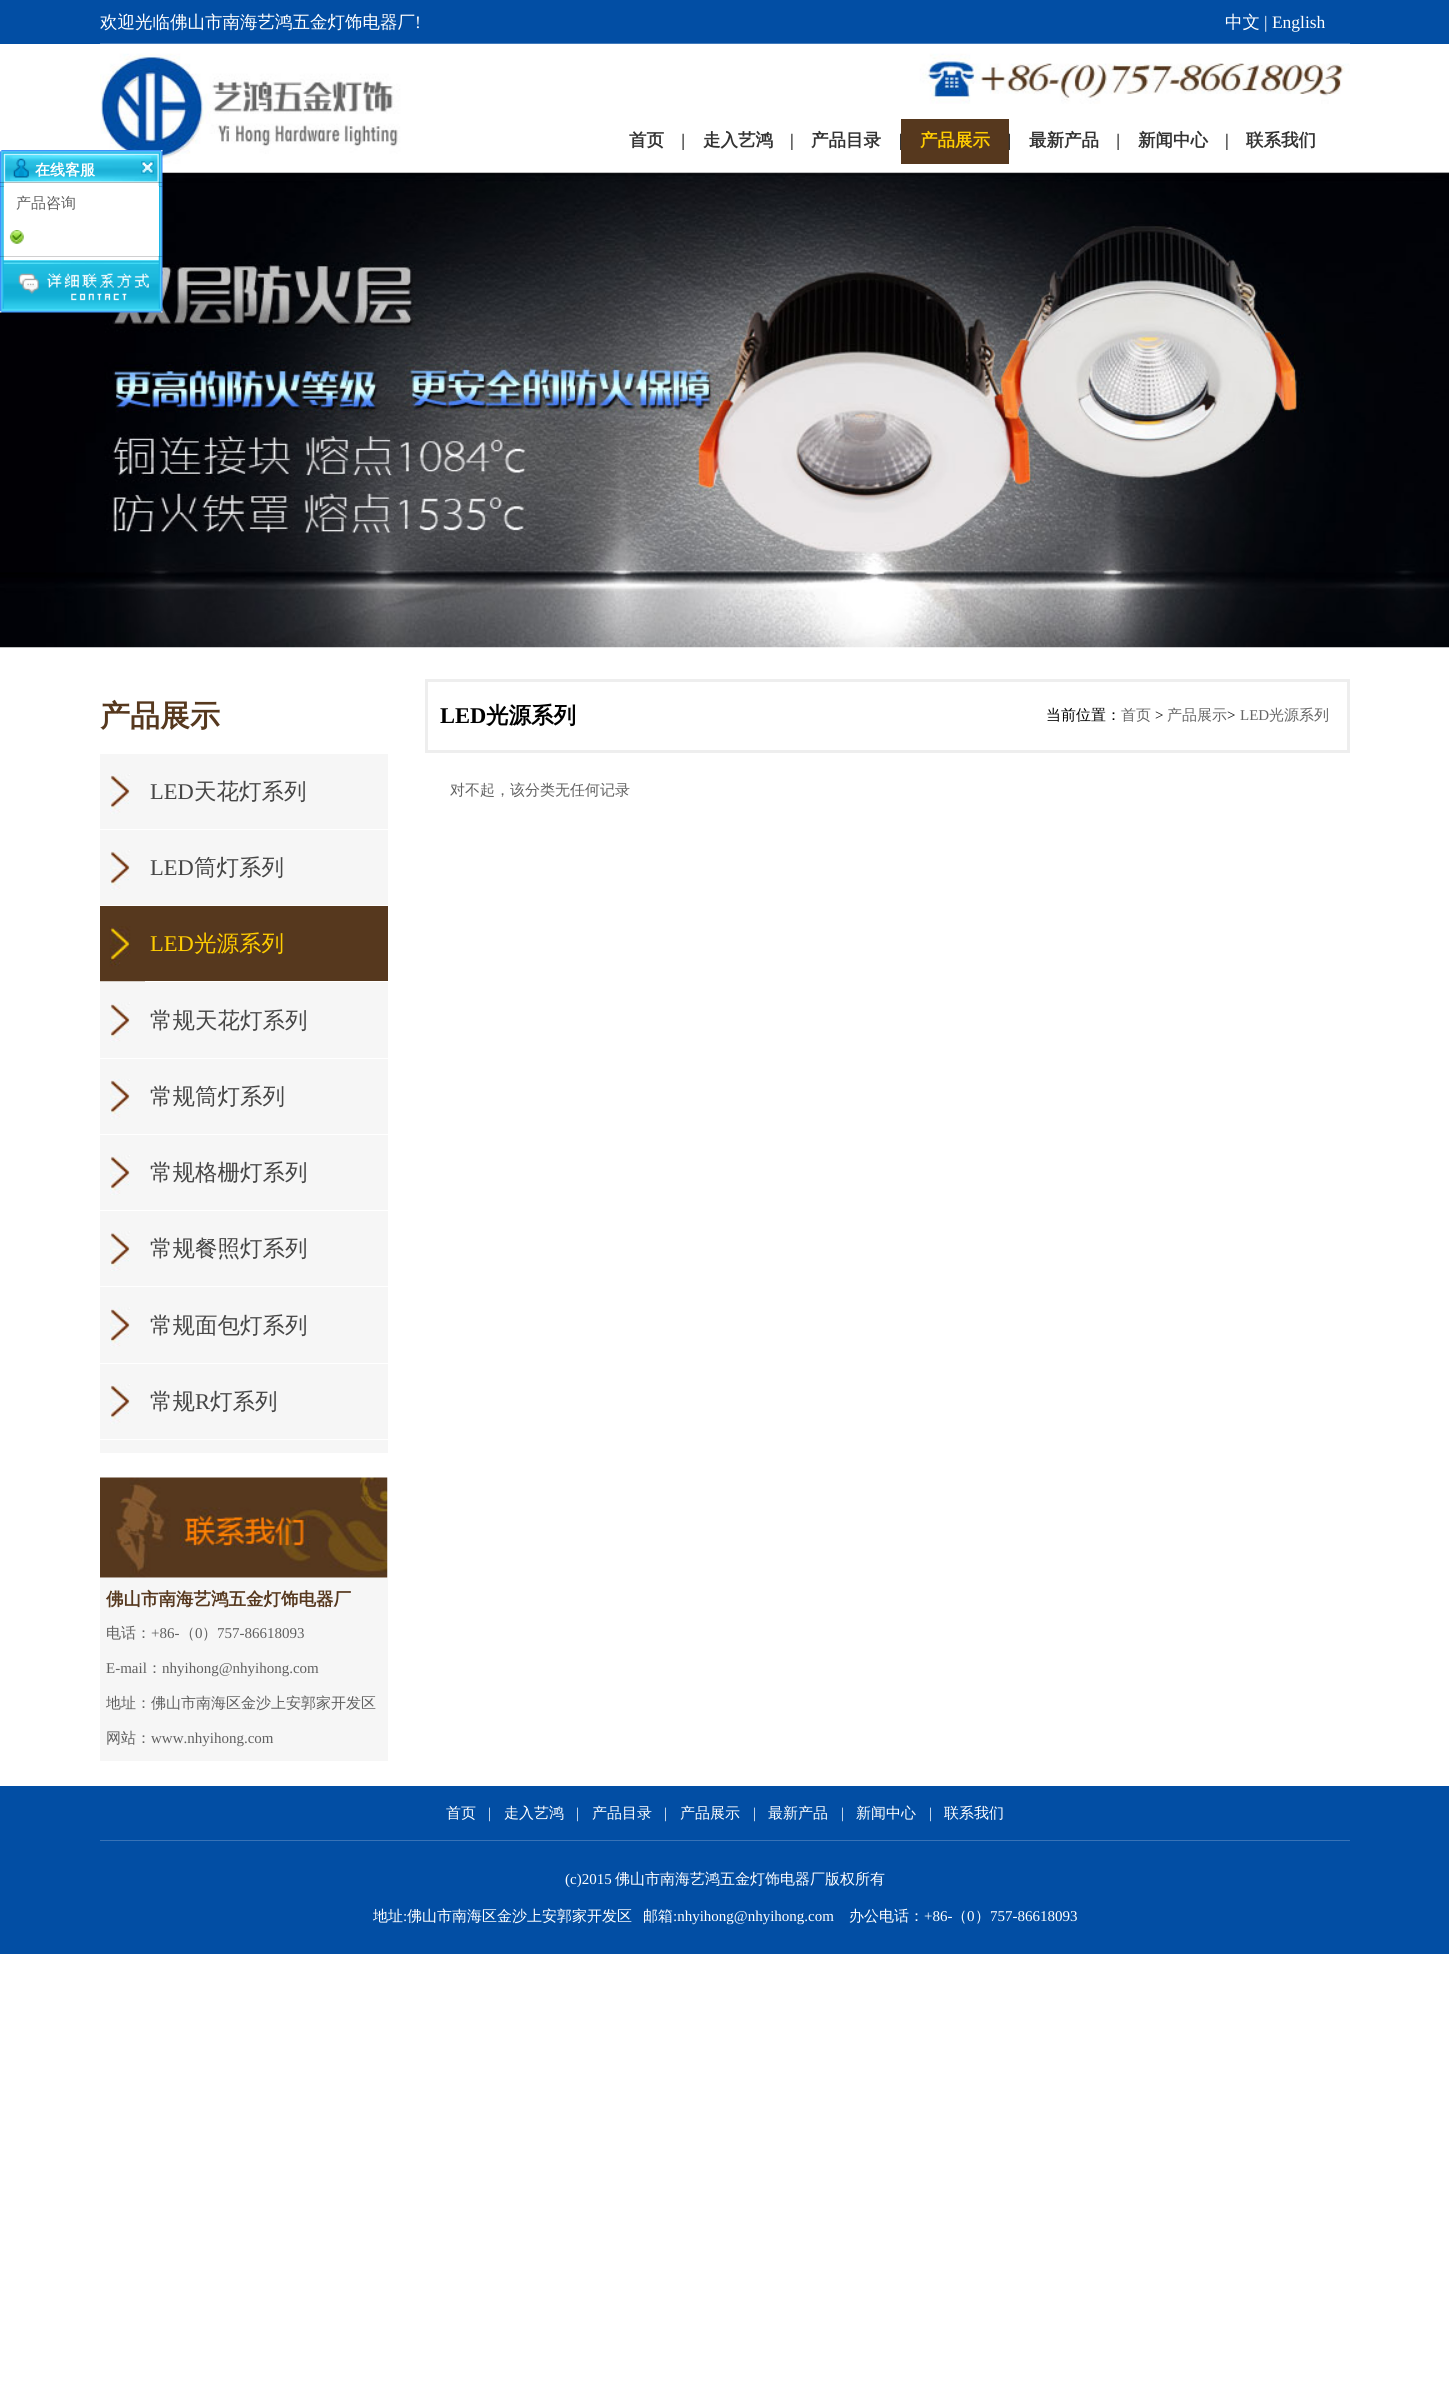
#include <cairo.h>
#include <math.h>
#include <stddef.h>

typedef struct { const char *family; double size; int italic, bold; unsigned color; } style_t;
static cairo_t *ctx;

static void ink(unsigned color) {
    cairo_set_source_rgb(ctx, (color >> 16) / 255.0, (color >> 8 & 255) / 255.0, (color & 255) / 255.0);
}

static void write(double x, double y, const char *s, const style_t *st) {
    cairo_select_font_face(ctx, st->family, st->italic ? CAIRO_FONT_SLANT_ITALIC : CAIRO_FONT_SLANT_NORMAL,
        st->bold ? CAIRO_FONT_WEIGHT_BOLD : CAIRO_FONT_WEIGHT_NORMAL);
    cairo_set_font_size(ctx, st->size);
    ink(st->color);
    cairo_move_to(ctx, x, y);
    cairo_show_text(ctx, s);
}

static void block(double x, double y, double w, double h, unsigned color) {
    ink(color);
    cairo_rectangle(ctx, x, y, w, h);
    cairo_fill(ctx);
}

static void paste(const char *path, double x, double y, double w, double h) {
    cairo_surface_t *image = cairo_image_surface_create_from_png(path);
    cairo_save(ctx);
    cairo_set_source_surface(ctx, image, x, y);
    cairo_rectangle(ctx, x, y, w, h);
    cairo_fill(ctx);
    cairo_restore(ctx);
    cairo_surface_destroy(image);
}

static const style_t s1 = {"WenQuanYi Zen Hei Medium", 17.5, 0, 0, 0xffffff};
static const style_t s2 = {"Liberation Serif", 17.5, 0, 0, 0xffffff};
static const style_t s3 = {"WenQuanYi Zen Hei", 17.5, 0, 1, 0x333333};
static const style_t s4 = {"WenQuanYi Zen Hei", 17.5, 0, 1, 0xffcc00};
static const style_t s5 = {"WenQuanYi Zen Hei", 15, 0, 1, 0xffffff};
static const style_t s6 = {"WenQuanYi Zen Hei Medium", 15, 0, 0, 0x606060};
static const style_t s7 = {"WenQuanYi Zen Hei", 30, 0, 1, 0x56381e};
static const style_t s8 = {"Liberation Serif", 22.5, 0, 0, 0x464646};
static const style_t s9 = {"WenQuanYi Zen Hei Medium", 22.5, 0, 0, 0x464646};
static const style_t s10 = {"Liberation Serif", 22.5, 0, 0, 0xffcc00};
static const style_t s11 = {"WenQuanYi Zen Hei Medium", 22.5, 0, 0, 0xffcc00};
static const style_t s12 = {"WenQuanYi Zen Hei", 17.5, 0, 1, 0x56381e};
static const style_t s13 = {"Liberation Serif", 15, 0, 0, 0x606060};
static const style_t s14 = {"Liberation Serif", 22.5, 0, 1, 0x000000};
static const style_t s15 = {"WenQuanYi Zen Hei", 22.5, 0, 1, 0x000000};
static const style_t s16 = {"WenQuanYi Zen Hei Medium", 15, 0, 0, 0x000000};
static const style_t s17 = {"WenQuanYi Zen Hei Medium", 15, 0, 0, 0x666666};
static const style_t s18 = {"Liberation Serif", 15, 0, 0, 0x000000};
static const style_t s19 = {"Liberation Serif", 15, 0, 0, 0x666666};
static const style_t s20 = {"WenQuanYi Zen Hei Medium", 15, 0, 0, 0xffffff};
static const style_t s21 = {"Liberation Serif", 15, 0, 0, 0xffffff};

int main(void) {
    cairo_surface_t *surface = cairo_image_surface_create(CAIRO_FORMAT_RGB24, 1449, 2407);
    ctx = cairo_create(surface);
    cairo_font_options_t *options = cairo_font_options_create();
    cairo_font_options_set_hint_metrics(options, CAIRO_HINT_METRICS_OFF);
    cairo_font_options_set_hint_style(options, CAIRO_HINT_STYLE_NONE);
    cairo_set_font_options(ctx, options);
    cairo_set_miter_limit(ctx, 4);
    ink(0xffffff);
    cairo_paint(ctx);
    block(0, 0, 1449, 44, 0x024ea4);
    write(100, 28, "欢迎光临佛山市南海艺鸿五金灯饰电器厂", &s1);
    write(415, 28, "!", &s2);
    write(1225, 28, "中文", &s1);
    write(1264, 28, "| English", &s2);
    paste("pic13.png", 0, 172, 1449, 476);
    paste("pic1.png", 100, 43, 1250, 130);
    write(629, 146, "首页", &s3);
    paste("pic2.png", 682, 133, 2, 17);
    write(703, 146, "走入艺鸿", &s3);
    paste("pic3.png", 791, 133, 2, 17);
    write(811, 146, "产品目录", &s3);
    paste("pic4.png", 900, 133, 1, 17);
    block(901, 119, 108, 45, 0x56381e);
    write(920, 146, "产品展示", &s4);
    paste("pic5.png", 1008, 133, 2, 17);
    write(1029, 146, "最新产品", &s3);
    paste("pic2.png", 1117, 133, 2, 17);
    write(1138, 146, "新闻中心", &s3);
    paste("pic3.png", 1226, 133, 2, 17);
    write(1246, 146, "联系我们", &s3);
    paste("pic14.png", 162, 172, 1287, 4);
    paste("pic6.png", 0, 150, 163, 33);
    write(35, 175, "在线客服", &s5);
    paste("pic7.png", 141, 161, 13, 13);
    paste("pic8.png", 0, 182, 163, 5);
    paste("pic9.png", 0, 186, 163, 71);
    block(4, 186, 155, 35, 0xffffff);
    write(16, 208, "产品咨询", &s6);
    block(158, 221, 1, 35, 0xffffff);
    paste("pic10.png", 9, 230, 15, 14);
    paste("pic11.png", 0, 256, 163, 4);
    paste("pic12.png", 0, 260, 163, 53);
    write(100, 726, "产品展示", &s7);
    block(100, 754, 288, 699, 0xf6f6f6);
    paste("pic15.png", 110, 774, 20, 40);
    block(100, 829, 288, 1, 0xffffff);
    write(150, 799, "LED", &s8);
    write(194, 799, "天花灯系列", &s9);
    paste("pic16.png", 110, 850, 20, 40);
    block(100, 905, 288, 1, 0xffffff);
    write(150, 875, "LED", &s8);
    write(194, 875, "筒灯系列", &s9);
    block(100, 981, 288, 1, 0xffffff);
    block(100, 906, 288, 75, 0x56381e);
    paste("pic17.png", 100, 926, 45, 56);
    write(150, 951, "LED", &s10);
    write(194, 951, "光源系列", &s11);
    paste("pic18.png", 110, 1002, 20, 40);
    block(100, 1058, 288, 1, 0xffffff);
    write(150, 1028, "常规天花灯系列", &s9);
    paste("pic15.png", 110, 1079, 20, 40);
    block(100, 1134, 288, 1, 0xffffff);
    write(150, 1104, "常规筒灯系列", &s9);
    paste("pic19.png", 110, 1155, 20, 40);
    block(100, 1210, 288, 1, 0xffffff);
    write(150, 1180, "常规格栅灯系列", &s9);
    paste("pic20.png", 110, 1231, 20, 40);
    block(100, 1286, 288, 1, 0xffffff);
    write(150, 1256, "常规餐照灯系列", &s9);
    paste("pic18.png", 110, 1307, 20, 40);
    block(100, 1363, 288, 1, 0xffffff);
    write(150, 1333, "常规面包灯系列", &s9);
    paste("pic15.png", 110, 1384, 20, 40);
    block(100, 1439, 288, 1, 0xffffff);
    write(150, 1409, "常规", &s9);
    write(195, 1409, "R", &s8);
    write(210, 1409, "灯系列", &s9);
    paste("pic21.png", 100, 1477, 288, 101);
    block(100, 1578, 288, 183, 0xf6f6f6);
    write(106, 1605, "佛山市南海艺鸿五金灯饰电器厂", &s12);
    write(106, 1638, "电话：", &s6);
    write(151, 1638, "+86-", &s13);
    write(180, 1638, "（", &s6);
    write(195, 1638, "0", &s13);
    write(202, 1638, "）", &s6);
    write(217, 1638, "757-86618093", &s13);
    write(106, 1673, "E-mail", &s13);
    write(147, 1673, "：", &s6);
    write(162, 1673, "nhyihong@nhyihong.com", &s13);
    write(106, 1708, "地址：佛山市南海区金沙上安郭家开发区", &s6);
    write(106, 1743, "网站：", &s6);
    write(151, 1743, "www.nhyihong.com", &s13);
    cairo_rectangle(ctx, 426.5, 680.5, 922, 71);
    ink(0xeeeeee);
    cairo_set_line_width(ctx, 3);
    cairo_stroke(ctx);
    write(440, 723, "LED", &s14);
    write(486, 723, "光源系列", &s15);
    write(1046, 720, "当前位置：", &s16);
    write(1121, 720, "首页", &s17);
    write(1155, 720, ">", &s18);
    write(1167, 720, "产品展示", &s17);
    write(1227, 720, ">", &s18);
    write(1240, 720, "LED", &s19);
    write(1269, 720, "光源系列", &s17);
    write(450, 795, "对不起，该分类无任何记录", &s6);
    block(0, 1786, 1449, 168, 0x024ea4);
    block(100, 1840, 1250, 1, 0x3873b7);
    write(446, 1818, "首页", &s20);
    write(488, 1818, "|", &s21);
    write(504, 1818, "走入艺鸿", &s20);
    write(576, 1818, "|", &s21);
    write(592, 1818, "产品目录", &s20);
    write(664, 1818, "|", &s21);
    write(680, 1818, "产品展示", &s20);
    write(753, 1818, "|", &s21);
    write(768, 1818, "最新产品", &s20);
    write(841, 1818, "|", &s21);
    write(856, 1818, "新闻中心", &s20);
    write(929, 1818, "|", &s21);
    write(944, 1818, "联系我们", &s20);
    write(565, 1884, "(c)2015", &s21);
    write(615, 1884, "佛山市南海艺鸿五金灯饰电器厂版权所有", &s20);
    write(373, 1921, "地址", &s20);
    write(403, 1921, ":", &s21);
    write(407, 1921, "佛山市南海区金沙上安郭家开发区", &s20);
    write(643, 1921, "邮箱", &s20);
    write(673, 1921, ":nhyihong@nhyihong.com", &s21);
    write(849, 1921, "办公电话：", &s20);
    write(924, 1921, "+86-", &s21);
    write(952, 1921, "（", &s20);
    write(967, 1921, "0", &s21);
    write(975, 1921, "）", &s20);
    write(990, 1921, "757-86618093", &s21);
    cairo_surface_write_to_png(surface, "screenshot.png");
    cairo_font_options_destroy(options);
    cairo_destroy(ctx);
    cairo_surface_destroy(surface);
    return 0;
}
